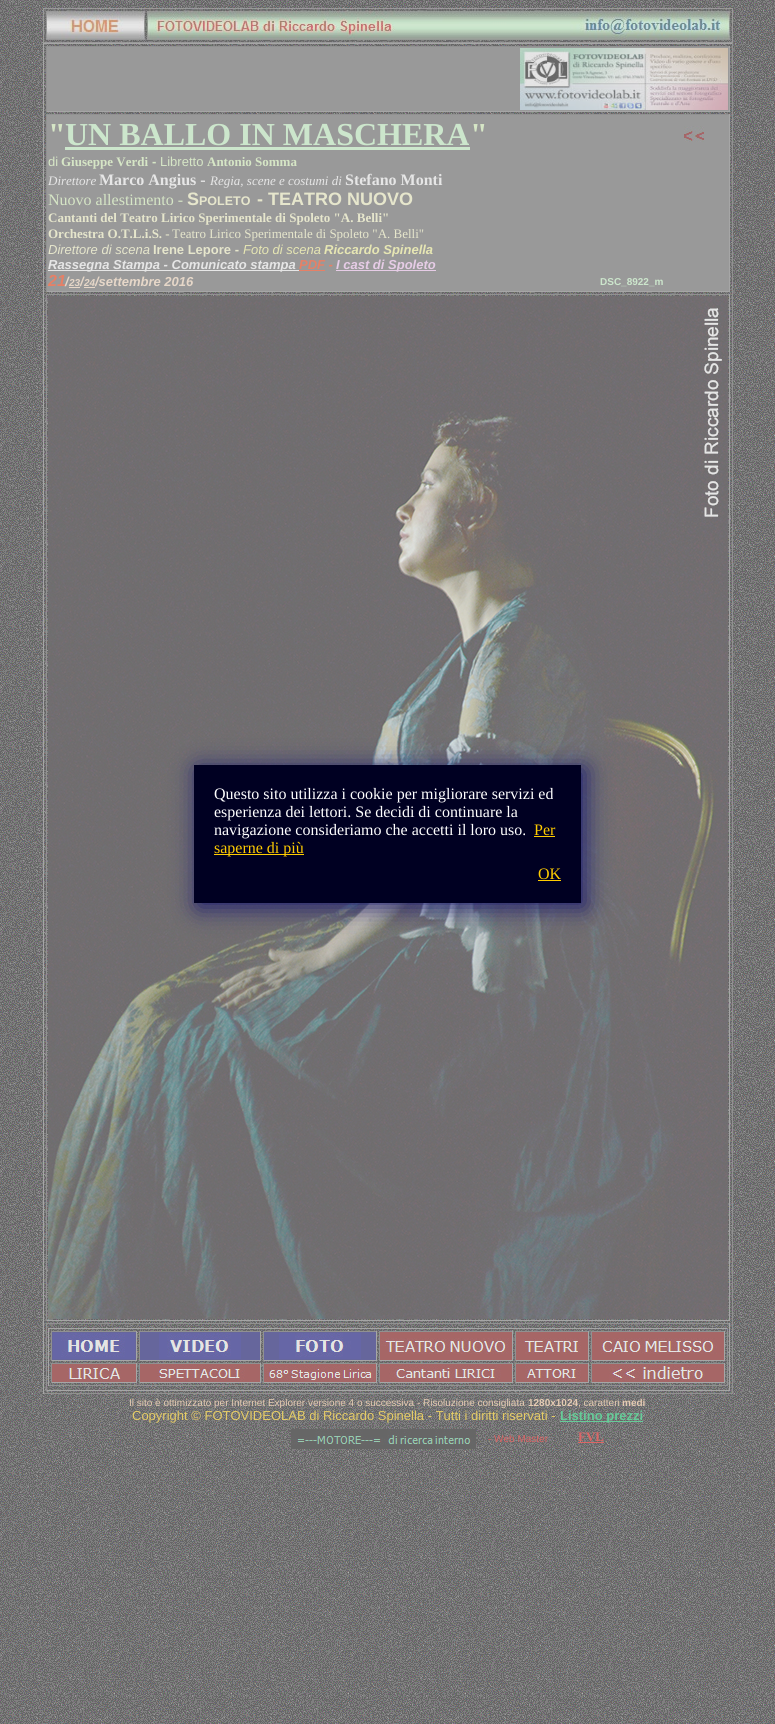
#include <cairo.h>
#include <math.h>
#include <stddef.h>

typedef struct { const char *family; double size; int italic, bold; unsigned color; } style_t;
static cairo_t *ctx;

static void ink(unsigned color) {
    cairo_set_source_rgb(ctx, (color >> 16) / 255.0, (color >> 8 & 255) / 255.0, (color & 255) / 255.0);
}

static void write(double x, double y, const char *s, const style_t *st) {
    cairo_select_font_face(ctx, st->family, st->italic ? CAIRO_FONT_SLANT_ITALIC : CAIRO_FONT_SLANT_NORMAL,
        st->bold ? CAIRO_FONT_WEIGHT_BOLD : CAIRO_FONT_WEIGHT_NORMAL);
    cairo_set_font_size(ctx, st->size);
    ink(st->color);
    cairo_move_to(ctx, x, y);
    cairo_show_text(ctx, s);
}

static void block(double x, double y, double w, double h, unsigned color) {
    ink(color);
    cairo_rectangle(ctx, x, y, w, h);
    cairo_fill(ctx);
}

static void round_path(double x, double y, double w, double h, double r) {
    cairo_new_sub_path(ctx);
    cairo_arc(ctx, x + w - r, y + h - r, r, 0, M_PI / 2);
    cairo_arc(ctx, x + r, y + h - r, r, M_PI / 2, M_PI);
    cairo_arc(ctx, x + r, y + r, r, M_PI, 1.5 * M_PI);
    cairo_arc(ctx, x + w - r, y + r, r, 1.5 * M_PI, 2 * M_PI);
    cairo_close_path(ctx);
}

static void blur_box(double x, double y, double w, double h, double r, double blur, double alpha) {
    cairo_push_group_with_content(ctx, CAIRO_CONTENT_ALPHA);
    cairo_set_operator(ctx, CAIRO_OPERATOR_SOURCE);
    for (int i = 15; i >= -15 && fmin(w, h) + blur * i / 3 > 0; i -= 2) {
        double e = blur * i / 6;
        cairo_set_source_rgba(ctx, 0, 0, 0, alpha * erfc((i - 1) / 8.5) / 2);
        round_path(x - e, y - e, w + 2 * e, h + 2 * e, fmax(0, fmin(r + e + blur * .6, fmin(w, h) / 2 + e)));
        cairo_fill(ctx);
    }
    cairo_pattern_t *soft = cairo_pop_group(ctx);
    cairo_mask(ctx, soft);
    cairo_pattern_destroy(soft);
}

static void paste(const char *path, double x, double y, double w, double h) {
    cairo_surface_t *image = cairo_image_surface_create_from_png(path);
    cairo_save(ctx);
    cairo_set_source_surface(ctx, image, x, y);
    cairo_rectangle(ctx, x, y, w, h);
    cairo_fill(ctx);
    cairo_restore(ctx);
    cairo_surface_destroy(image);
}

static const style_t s1 = {"Liberation Serif", 32, 0, 1, 0xd6e6c6};
static const style_t s2 = {"Liberation Serif", 32, 0, 1, 0xcce6cc};
static const style_t s3 = {"Liberation Sans", 13, 0, 0, 0xd6e6c6};
static const style_t s4 = {"Liberation Serif", 13, 0, 1, 0xd6e6c6};
static const style_t s5 = {"Liberation Sans", 13, 0, 1, 0xd6e6c6};
static const style_t s6 = {"Liberation Serif", 13, 1, 0, 0xe6e6e6};
static const style_t s7 = {"Liberation Serif", 16, 0, 1, 0xe6e6e6};
static const style_t s8 = {"Liberation Serif", 16, 0, 0, 0xd6e6c6};
static const style_t s9 = {"Liberation Sans", 18, 0, 1, 0xe6e6cc};
static const style_t s10 = {"Liberation Sans", 12.5, 0, 1, 0xe6e6cc};
static const style_t s11 = {"Liberation Serif", 13, 0, 1, 0xe6e6cc};
static const style_t s12 = {"Liberation Serif", 13, 0, 0, 0xe6e6cc};
static const style_t s13 = {"Liberation Sans", 13, 1, 0, 0xe6e6cc};
static const style_t s14 = {"Liberation Sans", 13, 0, 1, 0xe6e6cc};
static const style_t s15 = {"Liberation Sans", 13, 1, 0, 0xe6e6b3};
static const style_t s16 = {"Liberation Sans", 13, 1, 1, 0xe6e6b3};
static const style_t s17 = {"Liberation Sans", 13, 1, 1, 0xe6e6e6};
static const style_t s18 = {"Liberation Sans", 13, 1, 1, 0xe68066};
static const style_t s19 = {"Liberation Sans", 13, 1, 1, 0xe6cce6};
static const style_t s20 = {"Liberation Sans", 16, 1, 1, 0xe68066};
static const style_t s21 = {"Liberation Sans", 13, 1, 1, 0xe6d7c8};
static const style_t s22 = {"Liberation Sans", 10, 1, 1, 0xe6d7c8};
static const style_t s23 = {"Liberation Sans", 10, 0, 1, 0xcce6cc};
static const style_t s24 = {"Liberation Serif", 16, 0, 0, 0xffffff};
static const style_t s25 = {"Liberation Serif", 16, 0, 0, 0xffcc00};
static const style_t s26 = {"Liberation Sans", 10, 0, 0, 0xe6ccb3};
static const style_t s27 = {"Liberation Sans", 10, 0, 1, 0xe6ccb3};
static const style_t s28 = {"Liberation Sans", 13, 0, 0, 0xe6cc66};
static const style_t s29 = {"Liberation Sans", 13, 0, 1, 0x66cc99};
static const style_t s30 = {"Liberation Sans", 10, 0, 0, 0xdc6666};
static const style_t s31 = {"Liberation Serif", 13, 0, 1, 0xdc6666};

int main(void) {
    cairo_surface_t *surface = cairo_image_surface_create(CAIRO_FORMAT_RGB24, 775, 1724);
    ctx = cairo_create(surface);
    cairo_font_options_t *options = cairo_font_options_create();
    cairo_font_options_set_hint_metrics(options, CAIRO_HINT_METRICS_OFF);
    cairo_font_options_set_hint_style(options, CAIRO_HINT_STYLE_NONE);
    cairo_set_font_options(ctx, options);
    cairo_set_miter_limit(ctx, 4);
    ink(0xffffff);
    cairo_paint(ctx);
    paste("pic1.png", 0, 0, 775, 1724);
    paste("pic2.png", 43, 8, 690, 35);
    block(43, 43, 690, 1, 0xa6a6a6);
    block(732, 43, 1, 1351, 0x919191);
    block(43, 1393, 690, 1, 0x919191);
    block(43, 43, 1, 1351, 0xa6a6a6);
    block(47, 47, 682, 64, 0x999999);
    block(46, 46, 684, 1, 0x919191);
    block(729, 46, 1, 66, 0xa6a6a6);
    block(46, 111, 684, 1, 0xa6a6a6);
    block(46, 46, 1, 66, 0x919191);
    paste("pic3.png", 520, 48, 208, 62);
    block(47, 115, 682, 176, 0x999999);
    block(46, 114, 684, 1, 0x919191);
    block(729, 114, 1, 178, 0xa6a6a6);
    block(46, 291, 684, 1, 0xa6a6a6);
    block(46, 114, 1, 178, 0x919191);
    write(48, 145, "\"", &s1);
    write(65, 145, "UN BALLO IN MASCHERA", &s2);
    block(65, 147, 405, 3, 0xcce6cc);
    write(470, 145, "\"", &s1);
    paste("pic4.png", 684, 126, 20, 16);
    write(48, 166, "di", &s3);
    write(61, 166, "Giuseppe Verdi", &s4);
    write(152, 166, "-", &s5);
    write(160, 166, "Libretto", &s3);
    write(207, 166, "Antonio Somma", &s4);
    write(48, 185, "Direttore", &s6);
    write(99, 185, "Marco Angius -", &s7);
    write(210, 185, "Regia, scene e costumi di", &s6);
    write(345, 185, "Stefano Monti", &s7);
    write(48, 205, "Nuovo allestimento -", &s8);
    write(187, 205, "S", &s9);
    write(199, 205, "POLETO", &s10);
    write(257, 205, "- TEATRO NUOVO", &s9);
    write(48, 222, "Cantanti del Teatro Lirico Sperimentale di Spoleto \"A. Belli\"", &s11);
    write(48, 238, "Orchestra O.T.L.i.S. -", &s11);
    write(172, 238, "Teatro Lirico Sperimentale di Spoleto \"A. Belli\"", &s12);
    write(48, 254, "Direttore di scena", &s13);
    write(153, 254, "Irene Lepore -", &s14);
    write(243, 254, "Foto di scena", &s15);
    write(324, 254, "Riccardo Spinella", &s16);
    block(48, 270, 251, 1, 0xe6e6e6);
    write(48, 269, "Rassegna Stampa - Comunicato stampa", &s17);
    write(299, 269, "PDF -", &s18);
    block(299, 270, 26, 1, 0xe68066);
    block(336, 270, 100, 1, 0xe6cce6);
    write(336, 269, "I cast di Spoleto", &s19);
    write(48, 286, "21", &s20);
    write(65, 286, "/", &s21);
    write(69, 286, "23", &s22);
    block(69, 287, 11, 1, 0xe6d7c8);
    write(80, 286, "/", &s21);
    write(84, 286, "24", &s22);
    block(84, 287, 11, 1, 0xe6d7c8);
    write(95, 286, "/settembre 2016", &s21);
    write(600, 285, "DSC_8922_m", &s23);
    block(46, 294, 684, 1, 0x919191);
    block(729, 294, 1, 1027, 0xa6a6a6);
    block(46, 1320, 684, 1, 0xa6a6a6);
    block(46, 294, 1, 1027, 0x919191);
    paste("pic5.png", 48, 296, 680, 1023);
    block(46, 1323, 684, 1, 0x919191);
    block(729, 1323, 1, 68, 0xa6a6a6);
    block(46, 1390, 684, 1, 0xa6a6a6);
    block(46, 1323, 1, 68, 0x919191);
    block(48, 1328, 680, 1, 0xa6a6a6);
    block(727, 1328, 1, 58, 0x919191);
    block(48, 1385, 680, 1, 0x919191);
    block(48, 1328, 1, 58, 0xa6a6a6);
    block(52, 1332, 84, 28, 0x66669c);
    block(51, 1331, 86, 1, 0x919191);
    block(136, 1331, 1, 30, 0xa6a6a6);
    block(51, 1360, 86, 1, 0xa6a6a6);
    block(51, 1331, 1, 30, 0x919191);
    paste("pic6.png", 53, 1333, 82, 26);
    block(140, 1332, 120, 28, 0x66669c);
    block(139, 1331, 122, 1, 0x919191);
    block(260, 1331, 1, 30, 0xa6a6a6);
    block(139, 1360, 122, 1, 0xa6a6a6);
    block(139, 1331, 1, 30, 0x919191);
    paste("pic7.png", 159, 1333, 82, 26);
    block(264, 1332, 112, 28, 0x66669c);
    block(263, 1331, 114, 1, 0x919191);
    block(376, 1331, 1, 30, 0xa6a6a6);
    block(263, 1360, 114, 1, 0xa6a6a6);
    block(263, 1331, 1, 30, 0x919191);
    paste("pic8.png", 279, 1333, 82, 26);
    block(380, 1332, 132, 28, 0xa66666);
    block(379, 1331, 134, 1, 0x919191);
    block(512, 1331, 1, 30, 0xa6a6a6);
    block(379, 1360, 134, 1, 0xa6a6a6);
    block(379, 1331, 1, 30, 0x919191);
    paste("pic9.png", 381, 1338, 128, 16);
    block(516, 1332, 72, 28, 0xa66666);
    block(515, 1331, 74, 1, 0x919191);
    block(588, 1331, 1, 30, 0xa6a6a6);
    block(515, 1360, 74, 1, 0xa6a6a6);
    block(515, 1331, 1, 30, 0x919191);
    paste("pic10.png", 518, 1338, 63, 16);
    block(592, 1332, 132, 28, 0xa66666);
    block(591, 1331, 134, 1, 0x919191);
    block(724, 1331, 1, 30, 0xa6a6a6);
    block(591, 1360, 134, 1, 0xa6a6a6);
    block(591, 1331, 1, 30, 0x919191);
    paste("pic11.png", 601, 1338, 116, 16);
    block(52, 1364, 84, 18, 0xa66666);
    block(51, 1363, 86, 1, 0x919191);
    block(136, 1363, 1, 20, 0xa6a6a6);
    block(51, 1382, 86, 1, 0xa6a6a6);
    block(51, 1363, 1, 20, 0x919191);
    paste("pic12.png", 67, 1365, 54, 16);
    block(140, 1364, 120, 18, 0xa66666);
    block(139, 1363, 122, 1, 0x919191);
    block(260, 1363, 1, 20, 0xa6a6a6);
    block(139, 1382, 122, 1, 0xa6a6a6);
    block(139, 1363, 1, 20, 0x919191);
    paste("pic13.png", 157, 1365, 88, 16);
    block(264, 1364, 112, 18, 0xa66666);
    block(263, 1363, 114, 1, 0x919191);
    block(376, 1363, 1, 20, 0xa6a6a6);
    block(263, 1382, 114, 1, 0xa6a6a6);
    block(263, 1363, 1, 20, 0x919191);
    paste("pic14.png", 265, 1365, 110, 16);
    block(380, 1364, 132, 18, 0xa66666);
    block(379, 1363, 134, 1, 0x919191);
    block(512, 1363, 1, 20, 0xa6a6a6);
    block(379, 1382, 134, 1, 0xa6a6a6);
    block(379, 1363, 1, 20, 0x919191);
    paste("pic15.png", 389, 1365, 112, 16);
    block(516, 1364, 72, 18, 0xa66666);
    block(515, 1363, 74, 1, 0x919191);
    block(588, 1363, 1, 20, 0xa6a6a6);
    block(515, 1382, 74, 1, 0xa6a6a6);
    block(515, 1363, 1, 20, 0x919191);
    paste("pic16.png", 525, 1365, 56, 16);
    block(592, 1364, 132, 18, 0xa66666);
    block(591, 1363, 134, 1, 0x919191);
    block(724, 1363, 1, 20, 0xa6a6a6);
    block(591, 1382, 134, 1, 0xa6a6a6);
    block(591, 1363, 1, 20, 0x919191);
    paste("pic17.png", 609, 1365, 96, 16);
    ink(0x191970);
    blur_box(198, 769, 387, 138, 0, 12.5, 1);
    block(194, 765, 387, 138, 0x000022);
    write(214, 799, "Questo sito utilizza i cookie per migliorare servizi ed", &s24);
    write(214, 817, "esperienza dei lettori. Se decidi di continuare la", &s24);
    write(214, 835, "navigazione consideriamo che accetti il loro uso.", &s24);
    write(534, 835, "Per", &s25);
    block(534, 836, 21, 1, 0xffcc00);
    block(214, 854, 90, 1, 0xffcc00);
    write(214, 853, "saperne di più", &s25);
    write(538, 879, "OK", &s25);
    block(538, 880, 23, 1, 0xffcc00);
    write(129, 1406, "Il sito è ottimizzato per Internet Explorer versione 4 o successiva - Risoluzione consigliata", &s26);
    write(528, 1406, "1280x1024", &s27);
    write(578, 1406, ", caratteri", &s26);
    write(622, 1406, "medi", &s27);
    write(132, 1420, "Copyright © FOTOVIDEOLAB di Riccardo Spinella - Tutti i diritti riservati -", &s28);
    block(560, 1421, 83, 1, 0x66cc99);
    write(560, 1420, "Listino prezzi", &s29);
    paste("pic18.png", 291, 1429, 185, 20);
    write(488, 1442, "- Web Master", &s30);
    write(578, 1441, "FVL", &s31);
    block(578, 1442, 26, 1, 0xdc6666);
    cairo_surface_write_to_png(surface, "screenshot.png");
    cairo_font_options_destroy(options);
    cairo_destroy(ctx);
    cairo_surface_destroy(surface);
    return 0;
}
